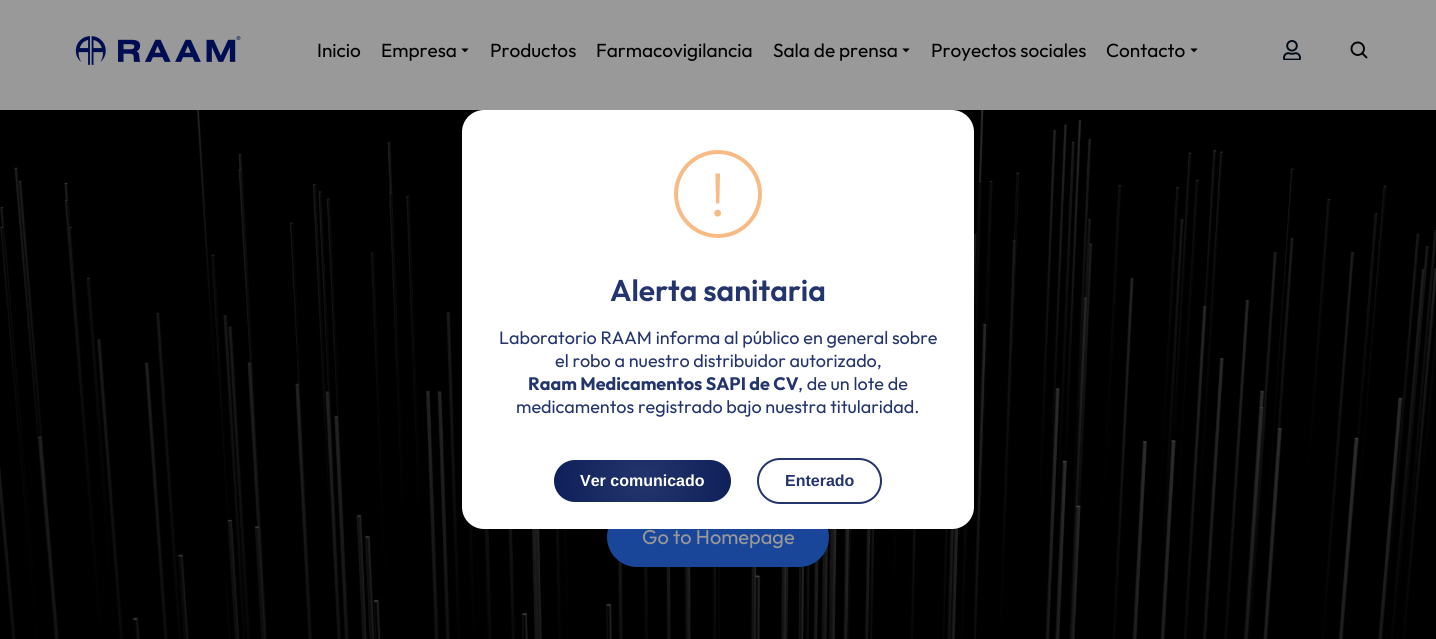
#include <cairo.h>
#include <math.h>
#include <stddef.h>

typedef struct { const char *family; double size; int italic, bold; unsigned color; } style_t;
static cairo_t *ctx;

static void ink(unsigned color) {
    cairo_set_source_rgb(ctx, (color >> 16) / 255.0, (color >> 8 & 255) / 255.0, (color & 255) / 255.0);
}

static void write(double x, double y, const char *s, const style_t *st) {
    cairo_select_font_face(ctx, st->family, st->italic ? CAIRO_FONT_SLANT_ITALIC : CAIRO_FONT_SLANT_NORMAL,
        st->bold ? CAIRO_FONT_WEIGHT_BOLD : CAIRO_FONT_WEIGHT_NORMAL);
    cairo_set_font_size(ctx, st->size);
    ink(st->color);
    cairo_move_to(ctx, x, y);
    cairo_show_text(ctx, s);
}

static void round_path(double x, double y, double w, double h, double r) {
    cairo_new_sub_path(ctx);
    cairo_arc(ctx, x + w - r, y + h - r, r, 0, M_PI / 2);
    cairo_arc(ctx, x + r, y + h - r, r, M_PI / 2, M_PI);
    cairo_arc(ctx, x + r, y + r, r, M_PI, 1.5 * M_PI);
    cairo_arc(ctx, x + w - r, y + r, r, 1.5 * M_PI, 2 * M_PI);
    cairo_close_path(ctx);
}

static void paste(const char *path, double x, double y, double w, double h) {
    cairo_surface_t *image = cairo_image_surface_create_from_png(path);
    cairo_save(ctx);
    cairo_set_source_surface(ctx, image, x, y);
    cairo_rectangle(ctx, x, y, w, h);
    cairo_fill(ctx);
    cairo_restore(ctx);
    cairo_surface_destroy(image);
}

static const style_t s1 = {"Outfit", 19, 0, 0, 0x000000};
static const style_t s2 = {"Outfit", 20, 0, 0, 0x999999};
static const style_t s3 = {"Outfit Light", 60, 0, 0, 0xf8bb86};
static const style_t s4 = {"Outfit SemiBold", 30, 0, 0, 0x24346c};
static const style_t s5 = {"Outfit", 18, 0, 0, 0x24346c};
static const style_t s6 = {"Outfit", 18, 0, 1, 0x24346c};
static const style_t s7 = {"Liberation Sans", 16, 0, 1, 0xffffff};
static const style_t s8 = {"Liberation Sans", 16, 0, 1, 0x24346c};

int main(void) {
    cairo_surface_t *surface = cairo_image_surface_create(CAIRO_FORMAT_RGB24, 1436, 639);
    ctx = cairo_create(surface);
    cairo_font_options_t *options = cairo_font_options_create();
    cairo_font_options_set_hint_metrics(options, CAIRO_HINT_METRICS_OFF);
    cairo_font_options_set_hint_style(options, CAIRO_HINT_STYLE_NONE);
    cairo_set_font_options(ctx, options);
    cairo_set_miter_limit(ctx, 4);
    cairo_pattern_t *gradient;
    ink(0x999999);
    cairo_paint(ctx);
    paste("pic1.png", 75, 36, 166, 29);
    write(317, 57, "Inicio", &s1);
    write(381, 57, "Empresa", &s1);
    paste("pic2.png", 461, 48, 8, 5);
    write(490, 57, "Productos", &s1);
    write(596, 57, "Farmacovigilancia", &s1);
    write(773, 57, "Sala de prensa", &s1);
    paste("pic2.png", 902, 48, 8, 5);
    write(931, 57, "Proyectos sociales", &s1);
    write(1106, 57, "Contacto", &s1);
    paste("pic2.png", 1190, 48, 8, 5);
    paste("pic3.png", 1283, 40, 18, 20);
    paste("pic4.png", 1350, 41, 18, 18);
    paste("pic5.png", 0, 110, 1436, 529);
    ink(0x1a4699);
    round_path(607, 507, 222, 60, 30);
    cairo_fill(ctx);
    write(642, 544, "Go to Homepage", &s2);
    ink(0xffffff);
    round_path(462, 110, 512, 419, 22);
    cairo_fill(ctx);
    cairo_arc(ctx, 718, 194, 42, 0, 2 * M_PI);
    ink(0xf8bb86);
    cairo_set_line_width(ctx, 4);
    cairo_stroke(ctx);
    write(710, 216, "!", &s3);
    write(610, 301, "Alerta sanitaria", &s4);
    write(499, 344, "Laboratorio RAAM informa al público en general sobre", &s5);
    write(555, 367, "el robo a nuestro distribuidor autorizado,", &s5);
    write(528, 390, "Raam Medicamentos SAPI de CV", &s6);
    write(798, 390, ", de un lote de", &s5);
    write(516, 413, "medicamentos registrado bajo nuestra titularidad.", &s5);
    gradient = cairo_pattern_create_radial(643, 481, 0, 643, 481, 91);
    cairo_pattern_add_color_stop_rgba(gradient, 0, 0.141, 0.204, 0.424, 1);
    cairo_pattern_add_color_stop_rgba(gradient, 1, 0.059, 0.122, 0.349, 1);
    cairo_set_source(ctx, gradient);
    cairo_pattern_destroy(gradient);
    round_path(554, 460, 177, 42, 21);
    cairo_fill(ctx);
    write(580, 486, "Ver comunicado", &s7);
    round_path(758, 459, 123, 44, 22);
    ink(0x24346c);
    cairo_set_line_width(ctx, 2);
    cairo_stroke(ctx);
    write(785, 486, "Enterado", &s8);
    cairo_surface_write_to_png(surface, "screenshot.png");
    cairo_font_options_destroy(options);
    cairo_destroy(ctx);
    cairo_surface_destroy(surface);
    return 0;
}
